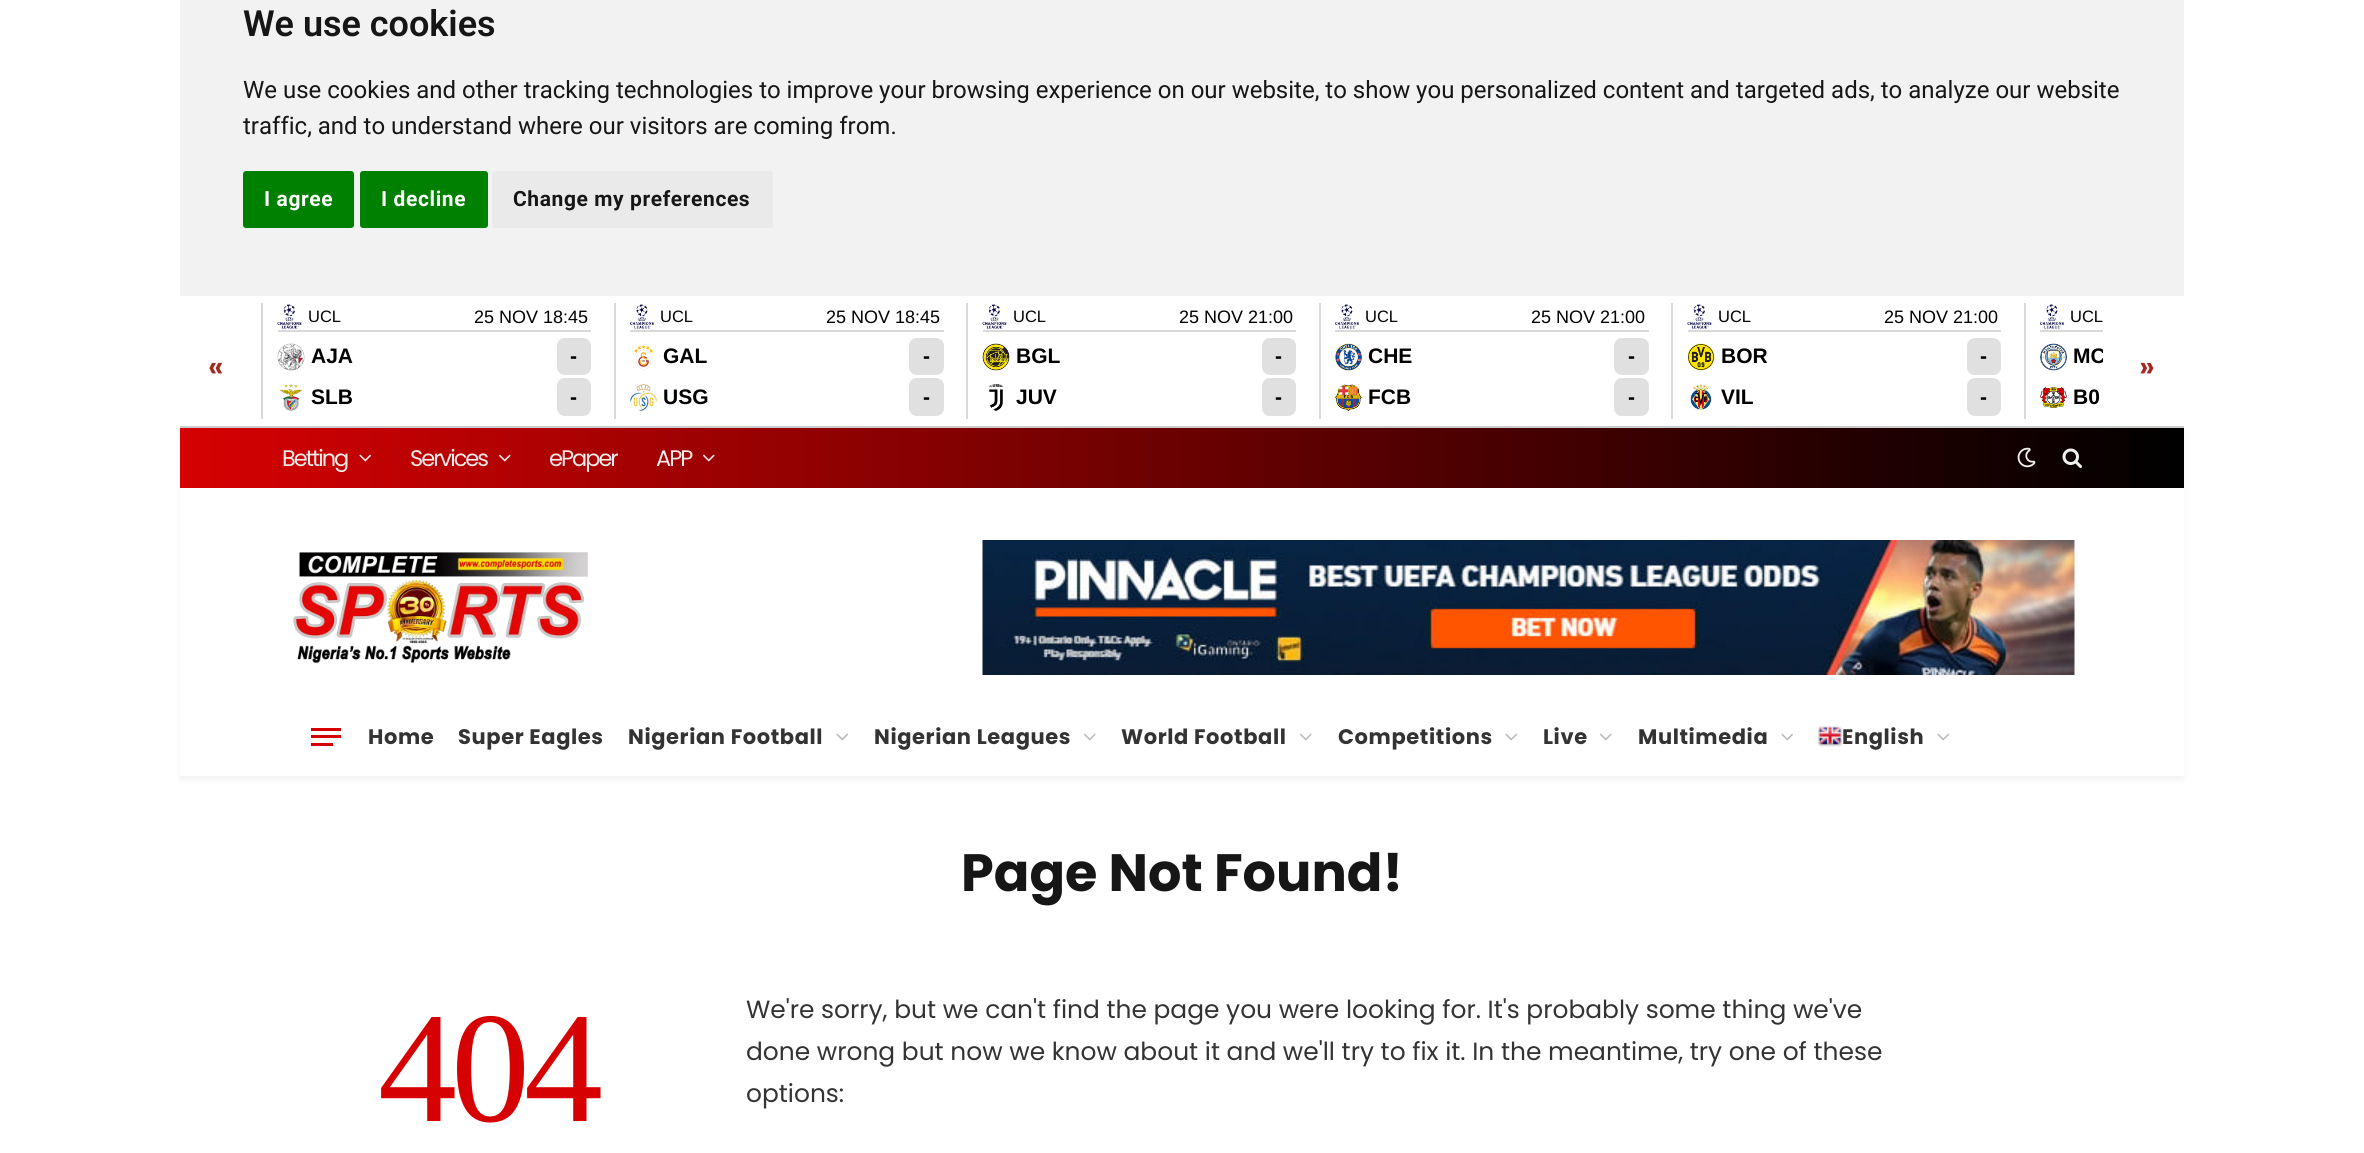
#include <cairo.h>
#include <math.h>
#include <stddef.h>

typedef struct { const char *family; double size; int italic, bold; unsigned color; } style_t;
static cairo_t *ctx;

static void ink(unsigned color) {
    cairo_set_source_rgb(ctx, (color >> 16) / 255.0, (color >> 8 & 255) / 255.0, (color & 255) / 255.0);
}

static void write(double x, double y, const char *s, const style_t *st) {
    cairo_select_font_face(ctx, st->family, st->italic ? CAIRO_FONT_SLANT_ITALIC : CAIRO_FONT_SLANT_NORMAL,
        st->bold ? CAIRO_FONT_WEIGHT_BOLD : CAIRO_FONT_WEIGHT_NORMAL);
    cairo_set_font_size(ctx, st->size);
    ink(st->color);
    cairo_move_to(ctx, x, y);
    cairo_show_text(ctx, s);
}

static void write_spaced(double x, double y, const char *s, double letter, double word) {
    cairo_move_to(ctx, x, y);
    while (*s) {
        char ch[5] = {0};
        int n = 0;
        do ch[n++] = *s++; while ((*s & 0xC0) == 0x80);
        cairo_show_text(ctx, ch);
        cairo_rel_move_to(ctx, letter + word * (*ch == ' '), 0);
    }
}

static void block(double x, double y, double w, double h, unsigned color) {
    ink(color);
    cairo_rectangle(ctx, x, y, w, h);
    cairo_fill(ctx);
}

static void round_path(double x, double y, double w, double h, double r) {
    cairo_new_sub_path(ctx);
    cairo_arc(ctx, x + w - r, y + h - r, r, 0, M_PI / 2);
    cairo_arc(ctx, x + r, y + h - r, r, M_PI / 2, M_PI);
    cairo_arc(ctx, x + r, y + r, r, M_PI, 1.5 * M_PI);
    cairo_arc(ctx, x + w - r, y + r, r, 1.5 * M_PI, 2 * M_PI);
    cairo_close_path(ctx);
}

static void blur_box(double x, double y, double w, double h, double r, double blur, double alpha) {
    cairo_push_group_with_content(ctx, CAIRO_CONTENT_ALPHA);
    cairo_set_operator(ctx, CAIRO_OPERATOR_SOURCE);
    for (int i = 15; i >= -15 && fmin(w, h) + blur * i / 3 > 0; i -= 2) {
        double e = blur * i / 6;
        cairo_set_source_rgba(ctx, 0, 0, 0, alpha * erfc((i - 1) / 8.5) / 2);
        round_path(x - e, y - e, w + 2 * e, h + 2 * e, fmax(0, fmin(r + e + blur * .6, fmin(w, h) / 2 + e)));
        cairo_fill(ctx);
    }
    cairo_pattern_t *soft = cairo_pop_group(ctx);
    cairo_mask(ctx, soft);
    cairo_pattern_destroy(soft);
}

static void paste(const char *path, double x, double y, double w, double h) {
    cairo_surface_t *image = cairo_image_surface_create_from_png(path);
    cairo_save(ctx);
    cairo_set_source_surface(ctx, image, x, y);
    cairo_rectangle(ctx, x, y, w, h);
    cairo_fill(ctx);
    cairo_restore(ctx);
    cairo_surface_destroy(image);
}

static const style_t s1 = {"Roboto SemiBold", 36, 0, 0, 0x161616};
static const style_t s2 = {"Roboto", 24, 0, 0, 0x161616};
static const style_t s3 = {"Liberation Sans", 16.5, 0, 0, 0x000000};
static const style_t s4 = {"Liberation Sans", 18, 0, 0, 0x000000};
static const style_t s5 = {"Liberation Sans", 21, 0, 1, 0x000000};
static const style_t s6 = {"Poppins", 52.5, 0, 1, 0x161616};
static const style_t s7 = {"Poppins", 24.9, 0, 0, 0x333333};

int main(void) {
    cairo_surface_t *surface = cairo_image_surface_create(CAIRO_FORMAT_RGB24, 2364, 1153);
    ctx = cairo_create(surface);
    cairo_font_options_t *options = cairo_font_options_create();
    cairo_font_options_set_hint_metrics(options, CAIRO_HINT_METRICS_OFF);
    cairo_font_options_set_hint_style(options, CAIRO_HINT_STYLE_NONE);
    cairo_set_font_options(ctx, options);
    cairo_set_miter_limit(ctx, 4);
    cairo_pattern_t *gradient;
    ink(0xffffff);
    cairo_paint(ctx);
    block(180, 0, 2004, 296, 0xf2f2f2);
    write(243, 36, "We use cookies", &s1);
    write(243, 98, "We use cookies and other tracking technologies to improve your browsing experience on our website, to show you personalized content and targeted ads, to analyze our website", &s2);
    write(243, 134, "traffic, and to understand where our visitors are coming from.", &s2);
    ink(0x008000);
    round_path(243, 171, 111, 57, 3);
    cairo_fill(ctx);
    cairo_select_font_face(ctx, "Roboto", CAIRO_FONT_SLANT_NORMAL, CAIRO_FONT_WEIGHT_BOLD);
    cairo_set_font_size(ctx, 21);
    ink(0xffffff);
    write_spaced(264, 206, "I agree", 0.6, 0);
    ink(0x008000);
    round_path(360, 171, 128, 57, 3);
    cairo_fill(ctx);
    ink(0xffffff);
    write_spaced(381, 206, "I decline", 0.6, 0);
    ink(0xeaeaea);
    round_path(492, 171, 281, 57, 3);
    cairo_fill(ctx);
    ink(0x161616);
    write_spaced(513, 206, "Change my preferences", 0.6, 0);
    block(180, 426, 2004, 2, 0xcccccc);
    cairo_select_font_face(ctx, "Poppins SemiBold", CAIRO_FONT_SLANT_NORMAL, CAIRO_FONT_WEIGHT_NORMAL);
    cairo_set_font_size(ctx, 30);
    ink(0xa52822);
    write_spaced(208, 377, "«", 1, 0);
    block(261, 303, 2, 116, 0xd9d9d9);
    block(278, 330, 313, 2, 0xd9d9d9);
    paste("pic1.png", 277, 304, 25, 25);
    write(308, 322, "UCL", &s3);
    write(474, 323, "25 NOV 18:45", &s4);
    paste("pic2.png", 277, 343, 28, 28);
    write(311, 363, "AJA", &s5);
    ink(0xe0e0e0);
    round_path(557, 338, 34, 37, 8);
    cairo_fill(ctx);
    write(570, 363, "-", &s5);
    paste("pic3.png", 280, 384, 22, 27);
    write(311, 404, "SLB", &s5);
    ink(0xe0e0e0);
    round_path(557, 378, 34, 38, 8);
    cairo_fill(ctx);
    write(570, 404, "-", &s5);
    block(614, 303, 2, 116, 0xd9d9d9);
    block(630, 330, 314, 2, 0xd9d9d9);
    paste("pic4.png", 630, 304, 24, 25);
    write(660, 322, "UCL", &s3);
    write(826, 323, "25 NOV 18:45", &s4);
    paste("pic5.png", 634, 344, 19, 26);
    write(663, 363, "GAL", &s5);
    ink(0xe0e0e0);
    round_path(909, 338, 35, 37, 8);
    cairo_fill(ctx);
    write(923, 363, "-", &s5);
    paste("pic6.png", 630, 384, 27, 27);
    write(663, 404, "USG", &s5);
    ink(0xe0e0e0);
    round_path(909, 378, 35, 38, 8);
    cairo_fill(ctx);
    write(923, 404, "-", &s5);
    block(966, 303, 2, 116, 0xd9d9d9);
    block(983, 330, 313, 2, 0xd9d9d9);
    paste("pic1.png", 982, 304, 25, 25);
    write(1013, 322, "UCL", &s3);
    write(1179, 323, "25 NOV 21:00", &s4);
    paste("pic7.png", 982, 343, 28, 28);
    write(1016, 363, "BGL", &s5);
    ink(0xe0e0e0);
    round_path(1262, 338, 34, 37, 8);
    cairo_fill(ctx);
    write(1275, 363, "-", &s5);
    paste("pic8.png", 989, 384, 14, 27);
    write(1016, 404, "JUV", &s5);
    ink(0xe0e0e0);
    round_path(1262, 378, 34, 38, 8);
    cairo_fill(ctx);
    write(1275, 404, "-", &s5);
    block(1319, 303, 2, 116, 0xd9d9d9);
    block(1335, 330, 314, 2, 0xd9d9d9);
    paste("pic4.png", 1335, 304, 24, 25);
    write(1365, 322, "UCL", &s3);
    write(1531, 323, "25 NOV 21:00", &s4);
    paste("pic9.png", 1335, 343, 27, 28);
    write(1368, 363, "CHE", &s5);
    ink(0xe0e0e0);
    round_path(1614, 338, 35, 37, 8);
    cairo_fill(ctx);
    write(1628, 363, "-", &s5);
    paste("pic10.png", 1335, 384, 27, 27);
    write(1368, 404, "FCB", &s5);
    ink(0xe0e0e0);
    round_path(1614, 378, 35, 38, 8);
    cairo_fill(ctx);
    write(1628, 404, "-", &s5);
    block(1671, 303, 2, 116, 0xd9d9d9);
    block(1688, 330, 313, 2, 0xd9d9d9);
    paste("pic1.png", 1687, 304, 25, 25);
    write(1718, 322, "UCL", &s3);
    write(1884, 323, "25 NOV 21:00", &s4);
    paste("pic11.png", 1687, 343, 28, 28);
    write(1721, 363, "BOR", &s5);
    ink(0xe0e0e0);
    round_path(1967, 338, 34, 37, 8);
    cairo_fill(ctx);
    write(1980, 363, "-", &s5);
    paste("pic12.png", 1690, 384, 22, 27);
    write(1721, 404, "VIL", &s5);
    ink(0xe0e0e0);
    round_path(1967, 378, 34, 38, 8);
    cairo_fill(ctx);
    write(1980, 404, "-", &s5);
    block(2024, 303, 2, 116, 0xd9d9d9);
    block(2040, 330, 63, 2, 0xd9d9d9);
    paste("pic4.png", 2040, 304, 24, 25);
    write(2070, 322, "UCL", &s3);
    paste("pic13.png", 2040, 343, 27, 28);
    cairo_save(ctx);
    cairo_rectangle(ctx, 261, 303, 1842, 116);
    cairo_clip(ctx);
    write(2073, 363, "MC", &s5);
    cairo_restore(ctx);
    paste("pic14.png", 2040, 387, 27, 21);
    write(2073, 404, "B0", &s5);
    cairo_select_font_face(ctx, "Poppins SemiBold", CAIRO_FONT_SLANT_NORMAL, CAIRO_FONT_WEIGHT_NORMAL);
    cairo_set_font_size(ctx, 30);
    ink(0xa52822);
    write_spaced(2139, 377, "»", 1, 0);
    cairo_save(ctx);
    cairo_set_fill_rule(ctx, CAIRO_FILL_RULE_EVEN_ODD);
    cairo_new_path(ctx);
    cairo_move_to(ctx, 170, 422);
    cairo_line_to(ctx, 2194, 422);
    cairo_line_to(ctx, 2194, 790);
    cairo_line_to(ctx, 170, 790);
    cairo_close_path(ctx);
    cairo_move_to(ctx, 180, 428);
    cairo_line_to(ctx, 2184, 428);
    cairo_line_to(ctx, 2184, 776);
    cairo_line_to(ctx, 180, 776);
    cairo_close_path(ctx);
    cairo_clip(ctx);
    ink(0x000000);
    blur_box(180, 432, 2004, 348, 0, 3, 0.05);
    cairo_restore(ctx);
    gradient = cairo_pattern_create_linear(180, 458, 2184, 457);
    cairo_pattern_add_color_stop_rgba(gradient, 0, 0.835, 0.004, 0.008, 1);
    cairo_pattern_add_color_stop_rgba(gradient, 1, 0, 0, 0, 1);
    cairo_set_source(ctx, gradient);
    cairo_pattern_destroy(gradient);
    cairo_rectangle(ctx, 180, 428, 2004, 60);
    cairo_fill(ctx);
    cairo_select_font_face(ctx, "Poppins", CAIRO_FONT_SLANT_NORMAL, CAIRO_FONT_WEIGHT_NORMAL);
    cairo_set_font_size(ctx, 22.5);
    ink(0xfaebeb);
    write_spaced(282, 466, "Betting", -2, 0);
    paste("pic15.png", 359, 454, 13, 8);
    write_spaced(410, 466, "Services", -2, 0);
    paste("pic16.png", 498, 454, 13, 8);
    write_spaced(549, 466, "ePaper", -2, 0);
    write_spaced(656, 466, "APP", -2, 0);
    paste("pic17.png", 702, 454, 13, 8);
    paste("pic18.png", 2017, 447, 19, 21);
    paste("pic19.png", 2062, 448, 20, 20);
    paste("pic20.png", 293, 552, 295, 112);
    paste("pic21.png", 982, 540, 1093, 135);
    block(311, 743, 22, 3, 0xd50102);
    block(311, 728, 30, 3, 0xd50102);
    block(311, 735, 30, 3, 0xd50102);
    cairo_select_font_face(ctx, "Poppins", CAIRO_FONT_SLANT_NORMAL, CAIRO_FONT_WEIGHT_BOLD);
    cairo_set_font_size(ctx, 21);
    ink(0x333333);
    write_spaced(368, 744, "Home", 0.6, 0);
    write_spaced(458, 744, "Super Eagles", 0.6, 0);
    write_spaced(628, 744, "Nigerian Football", 0.6, 0);
    paste("pic22.png", 836, 733, 12, 8);
    write_spaced(874, 744, "Nigerian Leagues", 0.6, 0);
    paste("pic23.png", 1084, 733, 12, 8);
    write_spaced(1121, 744, "World Football", 0.6, 0);
    paste("pic23.png", 1300, 733, 12, 8);
    write_spaced(1338, 744, "Competitions", 0.6, 0);
    paste("pic22.png", 1505, 733, 12, 8);
    write_spaced(1543, 744, "Live", 0.6, 0);
    paste("pic23.png", 1600, 733, 12, 8);
    write_spaced(1638, 744, "Multimedia", 0.6, 0);
    paste("pic22.png", 1781, 733, 12, 8);
    paste("pic24.png", 1818, 726, 24, 21);
    write_spaced(1842, 744, "English", 0.6, 0);
    paste("pic22.png", 1937, 733, 12, 8);
    write(961, 891, "Page Not Found!", &s6);
    cairo_select_font_face(ctx, "Liberation Serif", CAIRO_FONT_SLANT_NORMAL, CAIRO_FONT_WEIGHT_NORMAL);
    cairo_set_font_size(ctx, 158);
    ink(0xd50102);
    write_spaced(378, 1121, "404", -6, 0);
    write(746, 1018, "We're sorry, but we can't find the page you were looking for. It's probably some thing we've", &s7);
    write(746, 1060, "done wrong but now we know about it and we'll try to fix it. In the meantime, try one of these", &s7);
    write(746, 1102, "options:", &s7);
    cairo_surface_write_to_png(surface, "screenshot.png");
    cairo_font_options_destroy(options);
    cairo_destroy(ctx);
    cairo_surface_destroy(surface);
    return 0;
}
